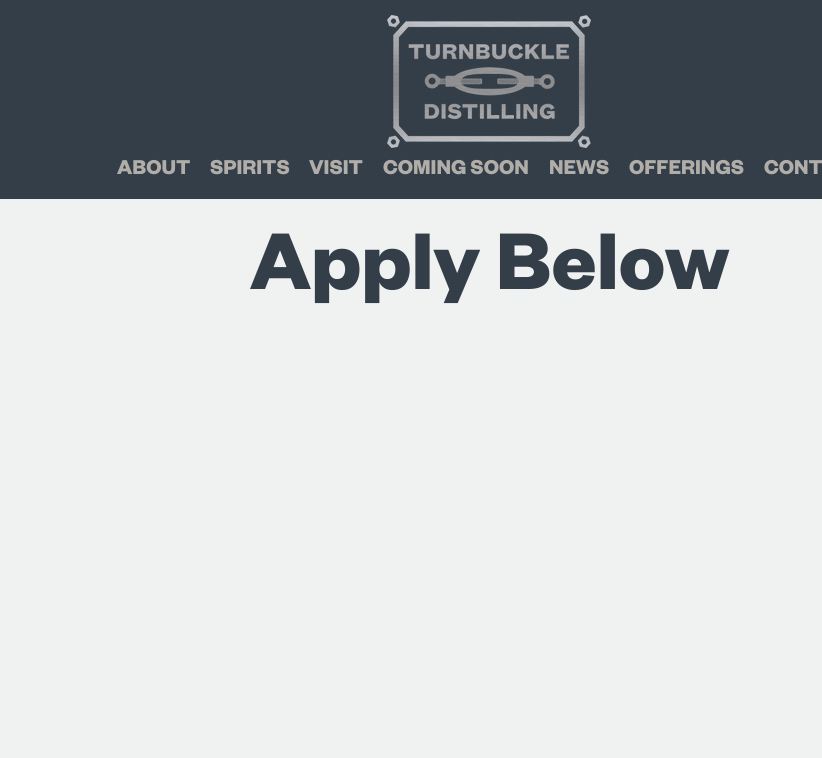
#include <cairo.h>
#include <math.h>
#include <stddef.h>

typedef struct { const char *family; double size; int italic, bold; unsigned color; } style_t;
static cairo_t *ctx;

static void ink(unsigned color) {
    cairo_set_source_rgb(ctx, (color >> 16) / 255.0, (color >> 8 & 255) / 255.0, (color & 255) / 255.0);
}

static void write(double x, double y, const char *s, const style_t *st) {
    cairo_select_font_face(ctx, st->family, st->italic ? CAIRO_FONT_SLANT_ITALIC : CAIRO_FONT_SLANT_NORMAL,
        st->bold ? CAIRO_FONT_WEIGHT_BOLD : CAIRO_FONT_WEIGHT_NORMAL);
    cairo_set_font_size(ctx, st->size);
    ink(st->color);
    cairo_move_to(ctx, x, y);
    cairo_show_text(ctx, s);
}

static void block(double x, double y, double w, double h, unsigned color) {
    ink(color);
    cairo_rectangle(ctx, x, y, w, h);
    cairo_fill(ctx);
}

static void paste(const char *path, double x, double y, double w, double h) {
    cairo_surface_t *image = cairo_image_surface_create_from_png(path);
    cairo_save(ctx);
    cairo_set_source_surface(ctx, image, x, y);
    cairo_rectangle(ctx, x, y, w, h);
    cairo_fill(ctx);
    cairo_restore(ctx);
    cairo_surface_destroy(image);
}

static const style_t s1 = {"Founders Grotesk", 22, 0, 1, 0xb1ada9};
static const style_t s2 = {"Founders Grotesk", 88, 0, 1, 0x333e48};

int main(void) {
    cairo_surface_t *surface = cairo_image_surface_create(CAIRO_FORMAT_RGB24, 822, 758);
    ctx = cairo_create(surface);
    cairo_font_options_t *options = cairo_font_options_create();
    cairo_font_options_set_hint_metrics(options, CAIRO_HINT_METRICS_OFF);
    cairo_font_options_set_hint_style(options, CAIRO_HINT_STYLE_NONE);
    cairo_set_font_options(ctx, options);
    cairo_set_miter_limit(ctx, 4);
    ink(0xf0f1f1);
    cairo_paint(ctx);
    block(0, 0, 822, 199, 0x333e48);
    paste("pic1.png", 387, 15, 204, 133);
    write(117, 174, "ABOUT", &s1);
    write(210, 174, "SPIRITS", &s1);
    write(309, 174, "VISIT", &s1);
    write(383, 174, "COMING SOON", &s1);
    write(549, 174, "NEWS", &s1);
    write(629, 174, "OFFERINGS", &s1);
    write(764, 174, "CONT", &s1);
    write(250, 289, "Apply Below", &s2);
    cairo_surface_write_to_png(surface, "screenshot.png");
    cairo_font_options_destroy(options);
    cairo_destroy(ctx);
    cairo_surface_destroy(surface);
    return 0;
}
